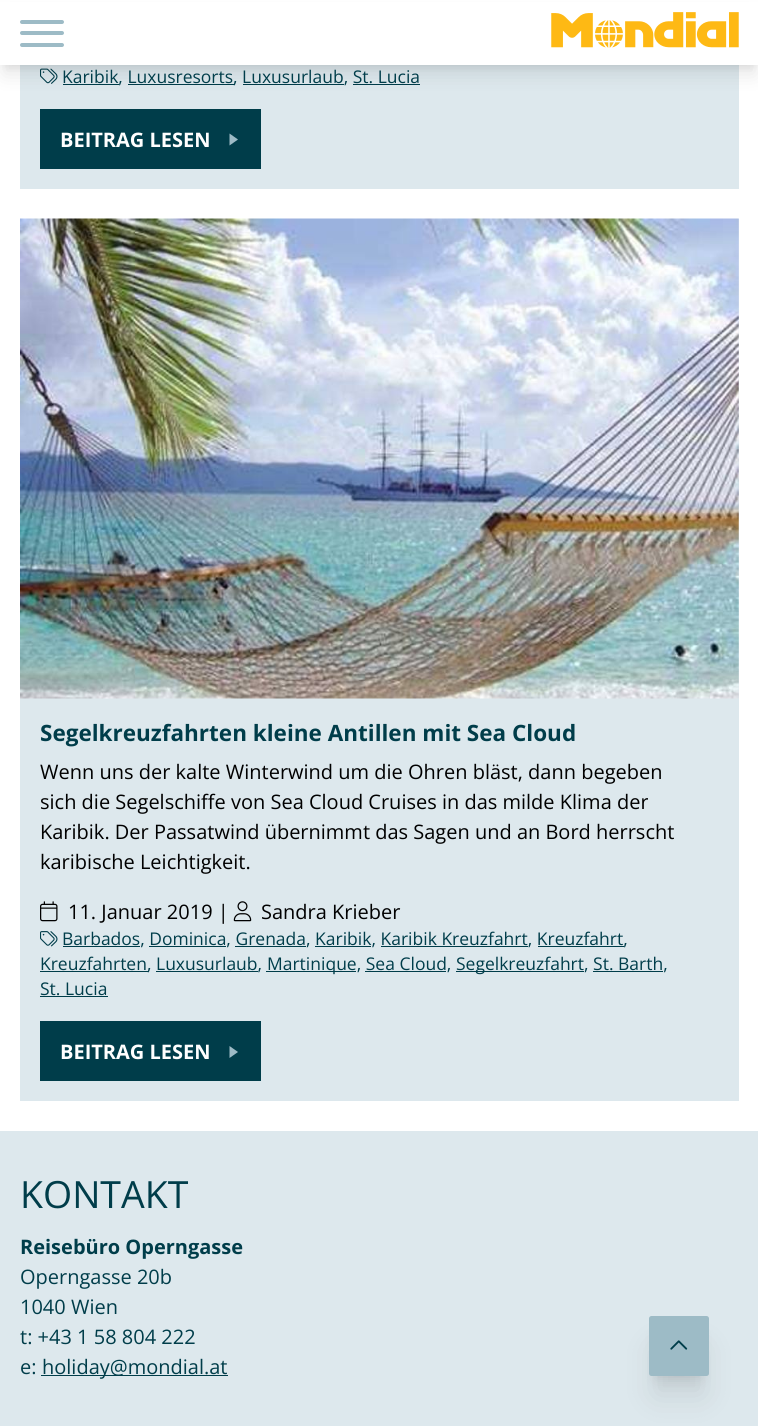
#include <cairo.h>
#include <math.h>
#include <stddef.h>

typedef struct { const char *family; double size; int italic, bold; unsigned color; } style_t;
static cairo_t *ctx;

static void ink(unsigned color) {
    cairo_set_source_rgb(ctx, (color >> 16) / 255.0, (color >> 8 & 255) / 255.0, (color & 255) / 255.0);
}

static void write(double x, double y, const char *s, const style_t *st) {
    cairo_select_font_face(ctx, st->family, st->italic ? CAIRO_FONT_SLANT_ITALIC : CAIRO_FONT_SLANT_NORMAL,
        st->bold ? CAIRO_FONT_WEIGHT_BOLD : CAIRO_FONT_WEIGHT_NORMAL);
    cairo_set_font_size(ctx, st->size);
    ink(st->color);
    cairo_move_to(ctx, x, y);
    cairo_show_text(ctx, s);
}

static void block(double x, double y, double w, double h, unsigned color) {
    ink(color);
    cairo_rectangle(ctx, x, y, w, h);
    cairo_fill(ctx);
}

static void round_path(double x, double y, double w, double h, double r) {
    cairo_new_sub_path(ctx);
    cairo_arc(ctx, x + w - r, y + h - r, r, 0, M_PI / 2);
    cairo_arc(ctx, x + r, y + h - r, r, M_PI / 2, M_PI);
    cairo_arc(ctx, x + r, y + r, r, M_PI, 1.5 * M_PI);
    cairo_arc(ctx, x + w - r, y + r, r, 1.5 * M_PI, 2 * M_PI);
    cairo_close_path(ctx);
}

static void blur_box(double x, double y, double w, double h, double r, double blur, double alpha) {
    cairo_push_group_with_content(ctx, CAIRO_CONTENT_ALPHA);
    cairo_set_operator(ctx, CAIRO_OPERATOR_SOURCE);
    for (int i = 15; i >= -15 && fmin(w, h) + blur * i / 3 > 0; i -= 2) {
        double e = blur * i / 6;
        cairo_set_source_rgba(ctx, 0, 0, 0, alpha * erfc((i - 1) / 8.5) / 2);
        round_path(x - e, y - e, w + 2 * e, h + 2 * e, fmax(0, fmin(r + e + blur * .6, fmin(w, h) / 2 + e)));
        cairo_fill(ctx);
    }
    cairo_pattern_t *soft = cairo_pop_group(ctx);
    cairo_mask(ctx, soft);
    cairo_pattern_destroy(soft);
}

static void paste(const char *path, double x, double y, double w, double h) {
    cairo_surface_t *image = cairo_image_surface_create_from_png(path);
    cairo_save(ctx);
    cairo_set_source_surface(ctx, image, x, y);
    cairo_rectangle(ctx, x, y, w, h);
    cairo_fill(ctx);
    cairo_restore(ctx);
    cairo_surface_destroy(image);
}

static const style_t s1 = {"Open Sans", 17.5, 0, 0, 0x003d4a};
static const style_t s2 = {"Open Sans", 20, 0, 1, 0xffffff};
static const style_t s3 = {"Open Sans", 22.5, 0, 1, 0x003d4a};
static const style_t s4 = {"Open Sans", 20, 0, 0, 0x000000};
static const style_t s5 = {"Open Sans", 37.5, 0, 0, 0x003d4a};
static const style_t s6 = {"Open Sans", 20, 0, 1, 0x003d4a};
static const style_t s7 = {"Open Sans", 20, 0, 0, 0x003d4a};

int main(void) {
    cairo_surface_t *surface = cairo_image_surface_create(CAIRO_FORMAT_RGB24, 758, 1426);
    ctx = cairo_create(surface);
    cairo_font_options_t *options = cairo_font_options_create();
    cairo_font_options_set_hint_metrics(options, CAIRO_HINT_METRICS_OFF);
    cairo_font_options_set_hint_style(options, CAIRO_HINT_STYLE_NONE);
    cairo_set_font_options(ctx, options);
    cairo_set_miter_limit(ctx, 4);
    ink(0xffffff);
    cairo_paint(ctx);
    block(20, 65, 719, 124, 0xdde8ed);
    paste("pic2.png", 40, 68, 18, 16);
    ink(0x000000);
    blur_box(5, 10, 749, 55, 0, 4, 0.1);
    block(63, 84, 56, 1, 0x003d4a);
    block(128, 84, 106, 1, 0x003d4a);
    block(243, 84, 101, 1, 0x003d4a);
    block(353, 84, 67, 1, 0x003d4a);
    ink(0x000000);
    blur_box(4, 16, 751, 58, 0, 9.5, 0.1);
    block(0, 2, 758, 63, 0xffffff);
    ink(0x9dbbc6);
    round_path(20, 20, 44, 4, 2);
    cairo_fill(ctx);
    round_path(20, 31, 44, 4, 2);
    cairo_fill(ctx);
    round_path(20, 43, 44, 4, 2);
    cairo_fill(ctx);
    paste("pic1.png", 551, 12, 188, 36);
    write(62, 83, "Karibik, Luxusresorts", &s1);
    write(233, 83, ", Luxusurlaub, St. Lucia", &s1);
    block(40, 109, 221, 60, 0x003d4a);
    write(60, 147, "BEITRAG LESEN", &s2);
    ink(0x9dbbc6);
    cairo_new_path(ctx);
    cairo_move_to(ctx, 229.5, 145.5);
    cairo_line_to(ctx, 238, 139.5);
    cairo_line_to(ctx, 229.5, 133.5);
    cairo_close_path(ctx);
    cairo_fill(ctx);
    block(20, 219, 719, 882, 0xdde8ed);
    paste("pic3.png", 20, 218, 719, 481);
    write(40, 741, "Segelkreuzfahrten kleine Antillen mit Sea Cloud", &s3);
    write(40, 779, "Wenn uns der kalte Winterwind um die Ohren bläst, dann begeben", &s4);
    write(40, 809, "sich die Segelschiffe von Sea Cloud Cruises in das milde Klima der", &s4);
    write(40, 839, "Karibik. Der Passatwind übernimmt das Sagen und an Bord herrscht", &s4);
    write(40, 869, "karibische Leichtigkeit.", &s4);
    paste("pic4.png", 40, 901, 18, 21);
    write(68, 919, "11. Januar 2019 |", &s4);
    paste("pic5.png", 233, 901, 19, 21);
    write(261, 919, "Sandra Krieber", &s4);
    paste("pic6.png", 40, 931, 18, 16);
    block(63, 946, 77, 1, 0x003d4a);
    write(62, 945, "Barbados, Dominica, Grenada, Karibik, Karibik Kreuzfahrt, Kreuzfahrt,", &s1);
    block(149, 946, 77, 1, 0x003d4a);
    block(235, 946, 71, 1, 0x003d4a);
    block(315, 946, 56, 1, 0x003d4a);
    block(381, 946, 147, 1, 0x003d4a);
    block(538, 946, 86, 1, 0x003d4a);
    block(40, 971, 108, 1, 0x003d4a);
    write(40, 970, "Kreuzfahrten, Luxusurlaub,", &s1);
    block(266, 971, 90, 1, 0x003d4a);
    write(267, 970, "Martinique, Sea Cloud,", &s1);
    block(456, 971, 128, 1, 0x003d4a);
    write(456, 970, "Segelkreuzfahrt, St. Barth,", &s1);
    block(156, 971, 102, 1, 0x003d4a);
    block(365, 971, 81, 1, 0x003d4a);
    block(593, 971, 70, 1, 0x003d4a);
    write(40, 995, "St. Lucia", &s1);
    block(40, 996, 68, 1, 0x003d4a);
    block(40, 1021, 221, 60, 0x003d4a);
    write(60, 1059, "BEITRAG LESEN", &s2);
    ink(0x9dbbc6);
    cairo_new_path(ctx);
    cairo_move_to(ctx, 229.5, 1058);
    cairo_line_to(ctx, 238, 1052);
    cairo_line_to(ctx, 229.5, 1046);
    cairo_close_path(ctx);
    cairo_fill(ctx);
    block(0, 1131, 758, 295, 0xdde8ed);
    write(20, 1208, "KONTAKT", &s5);
    write(20, 1254, "Reisebüro Operngasse", &s6);
    write(20, 1284, "Operngasse 20b", &s7);
    write(20, 1314, "1040 Wien", &s7);
    write(20, 1344, "t: +43 1 58 804 222", &s7);
    write(20, 1374, "e:", &s7);
    block(41, 1375, 187, 1, 0x003d4a);
    write(42, 1374, "holiday@mondial.at", &s7);
    ink(0x000000);
    blur_box(656, 1334, 45, 45, 0, 6, 0.1);
    blur_box(655, 1348, 48, 47, 0, 15.5, 0.1);
    ink(0x9dbbc6);
    round_path(649, 1316, 60, 60, 2.5);
    cairo_fill(ctx);
    paste("pic7.png", 670, 1340, 18, 10);
    cairo_surface_write_to_png(surface, "screenshot.png");
    cairo_font_options_destroy(options);
    cairo_destroy(ctx);
    cairo_surface_destroy(surface);
    return 0;
}
